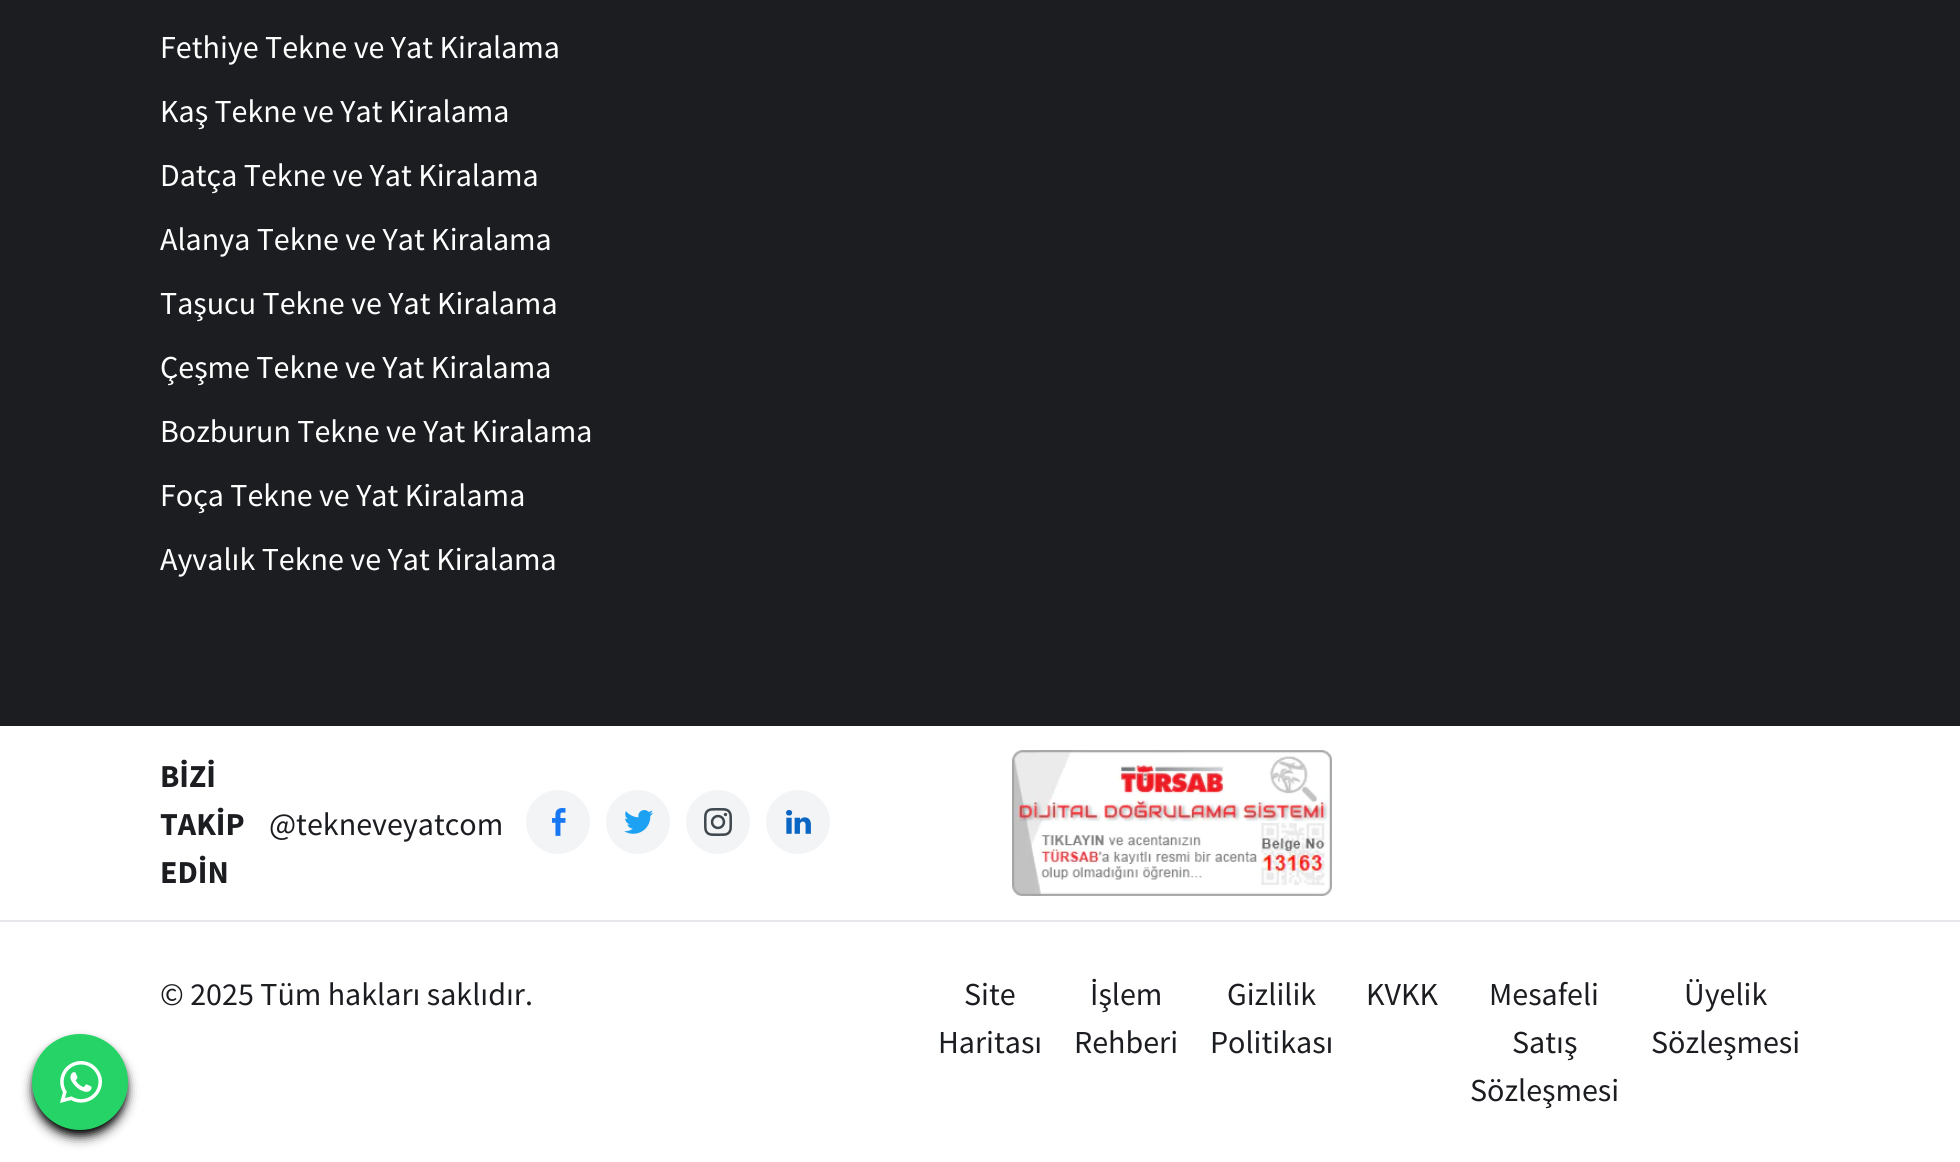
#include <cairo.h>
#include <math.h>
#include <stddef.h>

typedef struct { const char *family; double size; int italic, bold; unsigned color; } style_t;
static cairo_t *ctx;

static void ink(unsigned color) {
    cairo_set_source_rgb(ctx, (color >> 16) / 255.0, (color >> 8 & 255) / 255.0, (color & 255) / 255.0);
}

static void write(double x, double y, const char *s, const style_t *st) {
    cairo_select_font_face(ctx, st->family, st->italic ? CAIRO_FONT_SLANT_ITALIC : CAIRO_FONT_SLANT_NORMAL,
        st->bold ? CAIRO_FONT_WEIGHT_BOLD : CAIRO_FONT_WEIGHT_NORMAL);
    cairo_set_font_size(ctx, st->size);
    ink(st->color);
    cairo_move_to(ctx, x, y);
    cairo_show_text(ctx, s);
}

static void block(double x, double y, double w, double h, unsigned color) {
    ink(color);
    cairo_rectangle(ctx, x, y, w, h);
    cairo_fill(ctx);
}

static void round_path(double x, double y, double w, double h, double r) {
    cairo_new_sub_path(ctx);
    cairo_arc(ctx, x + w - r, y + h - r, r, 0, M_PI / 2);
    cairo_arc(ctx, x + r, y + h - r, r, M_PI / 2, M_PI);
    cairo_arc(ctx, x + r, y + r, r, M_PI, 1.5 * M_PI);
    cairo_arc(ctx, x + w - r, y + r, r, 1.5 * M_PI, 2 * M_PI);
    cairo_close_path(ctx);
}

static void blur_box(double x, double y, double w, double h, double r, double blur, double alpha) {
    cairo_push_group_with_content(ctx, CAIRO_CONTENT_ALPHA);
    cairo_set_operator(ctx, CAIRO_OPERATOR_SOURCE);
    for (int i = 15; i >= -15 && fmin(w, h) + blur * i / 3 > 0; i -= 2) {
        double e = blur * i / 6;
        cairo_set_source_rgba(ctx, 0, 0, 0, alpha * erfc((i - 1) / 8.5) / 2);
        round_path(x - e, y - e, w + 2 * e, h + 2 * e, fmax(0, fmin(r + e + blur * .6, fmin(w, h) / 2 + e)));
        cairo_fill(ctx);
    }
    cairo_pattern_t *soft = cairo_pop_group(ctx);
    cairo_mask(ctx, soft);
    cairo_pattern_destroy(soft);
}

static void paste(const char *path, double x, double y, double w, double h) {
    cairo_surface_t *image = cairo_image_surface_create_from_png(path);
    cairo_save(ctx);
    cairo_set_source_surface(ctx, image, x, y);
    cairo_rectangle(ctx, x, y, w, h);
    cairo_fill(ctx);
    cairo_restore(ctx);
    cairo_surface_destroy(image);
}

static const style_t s1 = {"Source Sans Pro", 32, 0, 0, 0xffffff};
static const style_t s2 = {"Source Sans Pro", 32, 0, 1, 0x1b1d21};
static const style_t s3 = {"Source Sans Pro", 32, 0, 0, 0x1b1d21};

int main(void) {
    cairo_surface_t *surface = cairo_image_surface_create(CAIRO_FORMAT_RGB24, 1960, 1162);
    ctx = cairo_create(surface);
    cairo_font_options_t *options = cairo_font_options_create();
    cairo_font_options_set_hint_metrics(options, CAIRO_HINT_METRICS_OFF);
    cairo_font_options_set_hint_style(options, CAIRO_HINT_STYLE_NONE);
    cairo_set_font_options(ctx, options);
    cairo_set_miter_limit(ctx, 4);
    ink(0xffffff);
    cairo_paint(ctx);
    block(0, 0, 1960, 726, 0x1b1d21);
    write(160, 58, "Fethiye Tekne ve Yat Kiralama", &s1);
    write(160, 122, "Kaş Tekne ve Yat Kiralama", &s1);
    write(160, 186, "Datça Tekne ve Yat Kiralama", &s1);
    write(160, 250, "Alanya Tekne ve Yat Kiralama", &s1);
    write(160, 314, "Taşucu Tekne ve Yat Kiralama", &s1);
    write(160, 378, "Çeşme Tekne ve Yat Kiralama", &s1);
    write(160, 442, "Bozburun Tekne ve Yat Kiralama", &s1);
    write(160, 506, "Foça Tekne ve Yat Kiralama", &s1);
    write(160, 570, "Ayvalık Tekne ve Yat Kiralama", &s1);
    ink(0x000000);
    blur_box(36, 1042, 88, 88, 44, 4, 1);
    blur_box(34, 1044, 92, 92, 46, 6, 1);
    ink(0x25d366);
    cairo_arc(ctx, 80, 1082, 48, 0, 2 * M_PI);
    cairo_fill(ctx);
    paste("pic1.png", 60, 1061, 42, 42);
    block(0, 920, 1960, 2, 0xe5e7eb);
    write(160, 787, "BİZİ", &s2);
    write(160, 835, "TAKİP", &s2);
    write(160, 883, "EDİN", &s2);
    write(269, 835, "@tekneveyatcom", &s3);
    ink(0xf3f4f6);
    cairo_new_path(ctx);
    cairo_arc(ctx, 558, 822, 32, 0, 2 * M_PI);
    cairo_fill(ctx);
    paste("pic2.png", 552, 808, 14, 28);
    cairo_arc(ctx, 638, 822, 32, 0, 2 * M_PI);
    cairo_fill(ctx);
    paste("pic3.png", 624, 810, 30, 24);
    cairo_arc(ctx, 718, 822, 32, 0, 2 * M_PI);
    cairo_fill(ctx);
    paste("pic4.png", 704, 808, 28, 28);
    cairo_arc(ctx, 798, 822, 32, 0, 2 * M_PI);
    cairo_fill(ctx);
    paste("pic5.png", 786, 810, 25, 24);
    paste("pic6.png", 1012, 750, 320, 146);
    write(160, 1005, "© 2025 Tüm hakları saklıdır.", &s3);
    write(964, 1005, "Site", &s3);
    write(938, 1053, "Haritası", &s3);
    write(1090, 1005, "İşlem", &s3);
    write(1074, 1053, "Rehberi", &s3);
    write(1227, 1005, "Gizlilik", &s3);
    write(1210, 1053, "Politikası", &s3);
    write(1366, 1005, "KVKK", &s3);
    write(1489, 1005, "Mesafeli", &s3);
    write(1512, 1053, "Satış", &s3);
    write(1470, 1101, "Sözleşmesi", &s3);
    write(1684, 1005, "Üyelik", &s3);
    write(1651, 1053, "Sözleşmesi", &s3);
    cairo_surface_write_to_png(surface, "screenshot.png");
    cairo_font_options_destroy(options);
    cairo_destroy(ctx);
    cairo_surface_destroy(surface);
    return 0;
}
